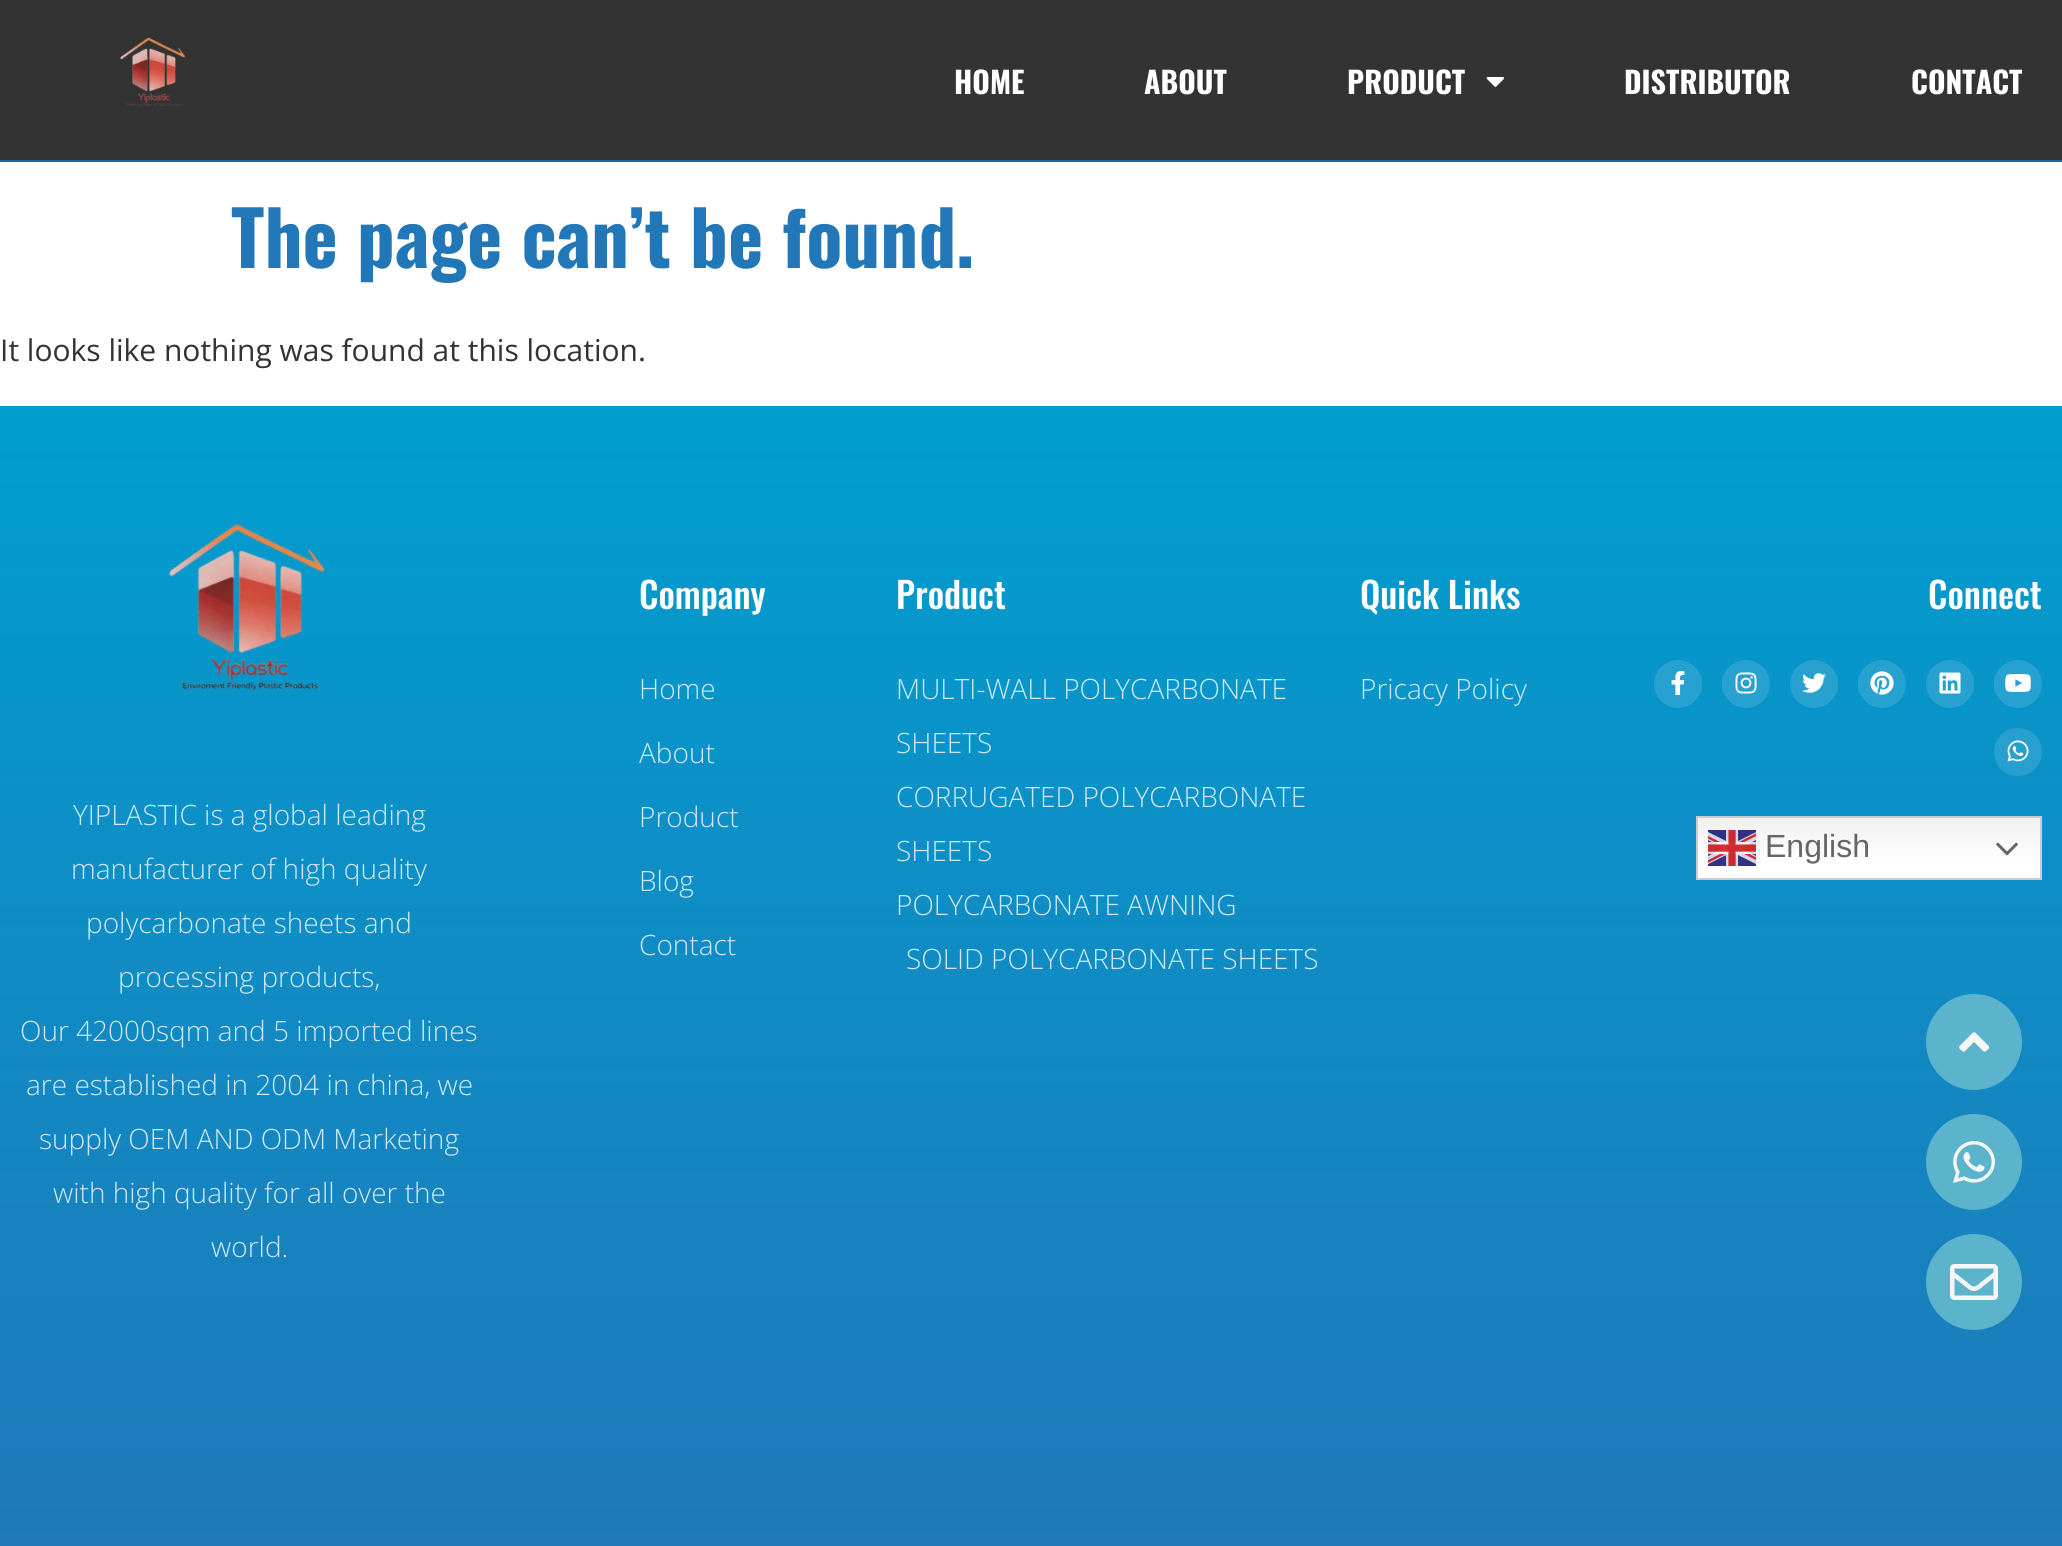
#include <cairo.h>
#include <math.h>
#include <stddef.h>

typedef struct { const char *family; double size; int italic, bold; unsigned color; } style_t;
static cairo_t *ctx;

static void ink(unsigned color) {
    cairo_set_source_rgb(ctx, (color >> 16) / 255.0, (color >> 8 & 255) / 255.0, (color & 255) / 255.0);
}

static void write(double x, double y, const char *s, const style_t *st) {
    cairo_select_font_face(ctx, st->family, st->italic ? CAIRO_FONT_SLANT_ITALIC : CAIRO_FONT_SLANT_NORMAL,
        st->bold ? CAIRO_FONT_WEIGHT_BOLD : CAIRO_FONT_WEIGHT_NORMAL);
    cairo_set_font_size(ctx, st->size);
    ink(st->color);
    cairo_move_to(ctx, x, y);
    cairo_show_text(ctx, s);
}

static void block(double x, double y, double w, double h, unsigned color) {
    ink(color);
    cairo_rectangle(ctx, x, y, w, h);
    cairo_fill(ctx);
}

static void paste(const char *path, double x, double y, double w, double h) {
    cairo_surface_t *image = cairo_image_surface_create_from_png(path);
    cairo_save(ctx);
    cairo_set_source_surface(ctx, image, x, y);
    cairo_rectangle(ctx, x, y, w, h);
    cairo_fill(ctx);
    cairo_restore(ctx);
    cairo_surface_destroy(image);
}

static const style_t s1 = {"Oswald", 30, 0, 1, 0xffffff};
static const style_t s2 = {"Oswald", 75, 0, 1, 0x2177b8};
static const style_t s3 = {"Open Sans", 30, 0, 0, 0x333333};
static const style_t s4 = {"Oswald Medium", 36, 0, 0, 0xffffff};
static const style_t s5 = {"Open Sans Light", 28, 0, 0, 0xcee9f4};
static const style_t s6 = {"Liberation Sans", 32, 0, 0, 0x666666};

int main(void) {
    cairo_surface_t *surface = cairo_image_surface_create(CAIRO_FORMAT_RGB24, 2062, 1546);
    ctx = cairo_create(surface);
    cairo_font_options_t *options = cairo_font_options_create();
    cairo_font_options_set_hint_metrics(options, CAIRO_HINT_METRICS_OFF);
    cairo_font_options_set_hint_style(options, CAIRO_HINT_STYLE_NONE);
    cairo_set_font_options(ctx, options);
    cairo_set_miter_limit(ctx, 4);
    cairo_pattern_t *gradient;
    ink(0xffffff);
    cairo_paint(ctx);
    block(0, 0, 2062, 160, 0x333333);
    block(0, 160, 2062, 2, 0x126bae);
    paste("pic1.png", 120, 37, 66, 70);
    write(954, 94, "HOME", &s1);
    write(1144, 94, "ABOUT", &s1);
    write(1347, 94, "PRODUCT", &s1);
    paste("pic2.png", 1486, 77, 19, 10);
    write(1624, 94, "DISTRIBUTOR", &s1);
    write(1911, 94, "CONTACT", &s1);
    write(231, 268, "The page can’t be found.", &s2);
    write(0, 361, "It looks like nothing was found at this location.", &s3);
    gradient = cairo_pattern_create_linear(1031, 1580, 1031, 406);
    cairo_pattern_add_color_stop_rgba(gradient, 0, 0.129, 0.467, 0.722, 1);
    cairo_pattern_add_color_stop_rgba(gradient, 1, 0, 0.62, 0.812, 1);
    cairo_set_source(ctx, gradient);
    cairo_pattern_destroy(gradient);
    cairo_rectangle(ctx, 0, 406, 2062, 1140);
    cairo_fill(ctx);
    write(639, 609, "Company", &s4);
    write(639, 699, "Home", &s5);
    write(639, 763, "About", &s5);
    write(639, 827, "Product", &s5);
    write(639, 891, "Blog", &s5);
    write(639, 955, "Contact", &s5);
    write(896, 609, "Product", &s4);
    write(896, 699, "MULTI-WALL POLYCARBONATE", &s5);
    write(896, 753, "SHEETS", &s5);
    write(896, 807, "CORRUGATED POLYCARBONATE", &s5);
    write(896, 861, "SHEETS", &s5);
    write(896, 915, "POLYCARBONATE AWNING", &s5);
    write(906, 969, "SOLID POLYCARBONATE SHEETS", &s5);
    write(1360, 609, "Quick Links", &s4);
    write(1360, 699, "Pricacy Policy", &s5);
    write(1928, 609, "Connect", &s4);
    ink(0x27a2d0);
    cairo_new_path(ctx);
    cairo_arc(ctx, 1678, 684, 24, 0, 2 * M_PI);
    cairo_fill(ctx);
    paste("pic3.png", 1671, 671, 14, 24);
    cairo_arc(ctx, 1746, 684, 24, 0, 2 * M_PI);
    cairo_fill(ctx);
    paste("pic4.png", 1735, 672, 22, 22);
    cairo_arc(ctx, 1814, 684, 24, 0, 2 * M_PI);
    cairo_fill(ctx);
    paste("pic5.png", 1802, 673, 24, 20);
    cairo_arc(ctx, 1882, 684, 24, 0, 2 * M_PI);
    cairo_fill(ctx);
    paste("pic6.png", 1870, 671, 24, 24);
    cairo_arc(ctx, 1950, 684, 24, 0, 2 * M_PI);
    cairo_fill(ctx);
    paste("pic7.png", 1939, 672, 22, 22);
    cairo_arc(ctx, 2018, 684, 24, 0, 2 * M_PI);
    cairo_fill(ctx);
    paste("pic8.png", 2005, 674, 26, 18);
    ink(0x28a0cf);
    cairo_arc(ctx, 2018, 752, 24, 0, 2 * M_PI);
    cairo_fill(ctx);
    paste("pic9.png", 2007, 740, 22, 22);
    gradient = cairo_pattern_create_linear(1869, 816, 1869, 880);
    cairo_pattern_add_color_stop_rgba(gradient, 0, 0.937, 0.937, 0.937, 1);
    cairo_pattern_add_color_stop_rgba(gradient, 0.7, 1, 1, 1, 1);
    cairo_set_source(ctx, gradient);
    cairo_pattern_destroy(gradient);
    cairo_rectangle(ctx, 1698, 818, 342, 60);
    cairo_fill(ctx);
    cairo_rectangle(ctx, 1697, 817, 344, 62);
    ink(0xcccccc);
    cairo_stroke(ctx);
    paste("pic10.png", 1708, 830, 48, 36);
    write(1765, 857, "English", &s6);
    paste("pic11.png", 1996, 842, 22, 14);
    ink(0x5cb3cc);
    cairo_arc(ctx, 1974, 1042, 48, 0, 2 * M_PI);
    cairo_fill(ctx);
    paste("pic12.png", 1959, 1032, 31, 20);
    cairo_arc(ctx, 1974, 1162, 48, 0, 2 * M_PI);
    cairo_fill(ctx);
    paste("pic13.png", 1953, 1141, 42, 42);
    cairo_arc(ctx, 1974, 1282, 48, 0, 2 * M_PI);
    cairo_fill(ctx);
    paste("pic14.png", 1950, 1264, 48, 36);
    paste("pic15.png", 168, 523, 157, 168);
    write(73, 825, "YIPLASTIC is a global leading", &s5);
    write(71, 879, "manufacturer of high quality", &s5);
    write(86, 933, "polycarbonate sheets and", &s5);
    write(118, 987, "processing products,", &s5);
    write(20, 1041, "Our 42000sqm and 5 imported lines", &s5);
    write(26, 1095, "are established in 2004 in china, we", &s5);
    write(39, 1149, "supply OEM AND ODM Marketing", &s5);
    write(53, 1203, "with high quality for all over the", &s5);
    write(211, 1257, "world.", &s5);
    cairo_surface_write_to_png(surface, "screenshot.png");
    cairo_font_options_destroy(options);
    cairo_destroy(ctx);
    cairo_surface_destroy(surface);
    return 0;
}
